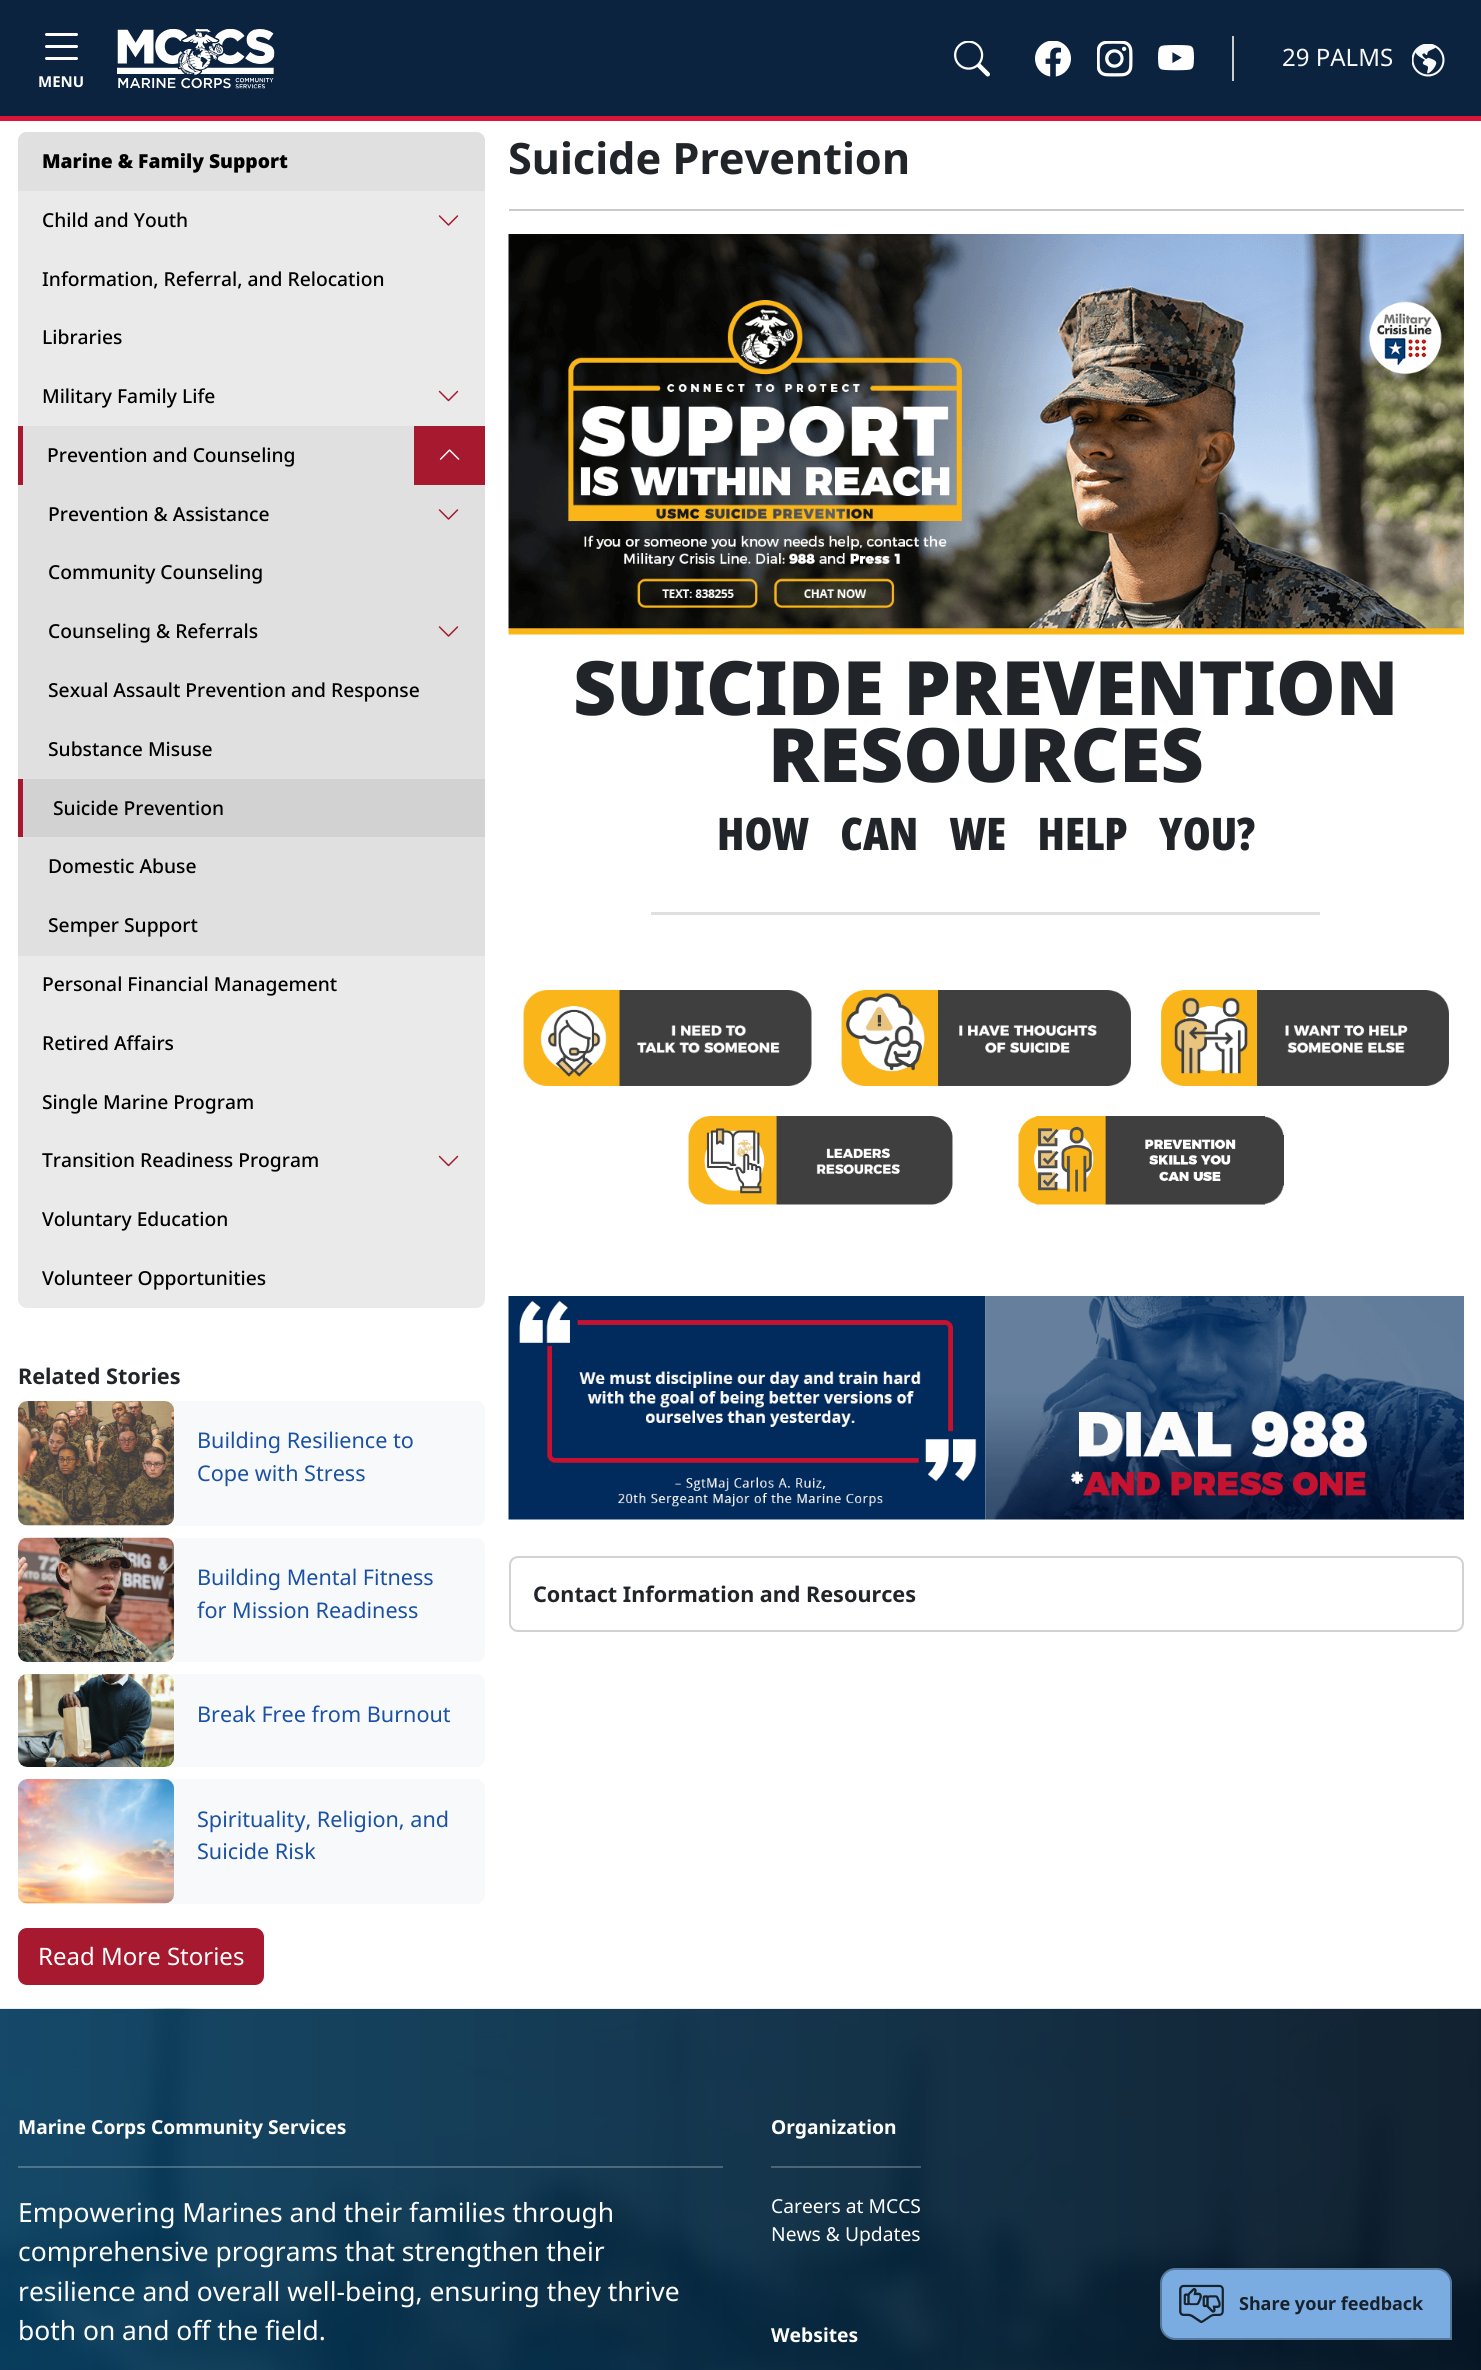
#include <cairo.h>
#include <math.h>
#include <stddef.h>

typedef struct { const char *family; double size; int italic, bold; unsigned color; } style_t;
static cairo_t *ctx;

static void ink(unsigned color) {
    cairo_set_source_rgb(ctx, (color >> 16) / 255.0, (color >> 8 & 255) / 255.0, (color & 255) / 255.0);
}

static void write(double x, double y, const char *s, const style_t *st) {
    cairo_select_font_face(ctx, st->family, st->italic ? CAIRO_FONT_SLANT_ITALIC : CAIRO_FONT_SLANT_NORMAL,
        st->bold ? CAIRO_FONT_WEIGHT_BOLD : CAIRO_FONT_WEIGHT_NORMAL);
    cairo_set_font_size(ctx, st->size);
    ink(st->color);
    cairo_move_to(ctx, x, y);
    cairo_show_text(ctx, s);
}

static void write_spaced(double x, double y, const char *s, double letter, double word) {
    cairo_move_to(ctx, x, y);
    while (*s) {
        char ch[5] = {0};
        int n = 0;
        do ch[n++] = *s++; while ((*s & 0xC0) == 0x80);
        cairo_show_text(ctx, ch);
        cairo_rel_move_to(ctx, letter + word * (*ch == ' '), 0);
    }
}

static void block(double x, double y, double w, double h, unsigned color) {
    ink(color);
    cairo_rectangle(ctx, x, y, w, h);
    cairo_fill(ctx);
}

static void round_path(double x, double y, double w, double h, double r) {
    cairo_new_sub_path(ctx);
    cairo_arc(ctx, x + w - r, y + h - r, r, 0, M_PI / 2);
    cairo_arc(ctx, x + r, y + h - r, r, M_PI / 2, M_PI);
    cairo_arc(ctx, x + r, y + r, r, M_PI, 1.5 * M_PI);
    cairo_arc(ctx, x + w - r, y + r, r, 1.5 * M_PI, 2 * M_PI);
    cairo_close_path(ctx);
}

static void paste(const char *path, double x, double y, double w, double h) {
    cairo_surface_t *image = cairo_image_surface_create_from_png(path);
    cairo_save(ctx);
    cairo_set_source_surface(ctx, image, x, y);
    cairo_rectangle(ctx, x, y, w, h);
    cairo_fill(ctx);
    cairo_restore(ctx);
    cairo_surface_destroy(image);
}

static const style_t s1 = {"Noto Sans", 24, 0, 0, 0xf8f9fa};
static const style_t s2 = {"Noto Sans", 15, 0, 1, 0xffffff};
static const style_t s3 = {"Noto Sans Black", 19.25, 0, 0, 0x000000};
static const style_t s4 = {"Noto Sans Medium", 19.25, 0, 0, 0x000000};
static const style_t s5 = {"Noto Sans", 21.6, 0, 1, 0x212529};
static const style_t s6 = {"Noto Sans", 21.6, 0, 0, 0x1a51a4};
static const style_t s7 = {"Noto Sans", 24, 0, 0, 0xffffff};
static const style_t s8 = {"Noto Sans", 43.25, 0, 1, 0x212529};
static const style_t s9 = {"Noto Sans Black", 75, 0, 0, 0x212529};
static const style_t s10 = {"Noto Sans", 19.25, 0, 1, 0xffffff};
static const style_t s11 = {"Noto Sans", 26.4, 0, 0, 0xffffff};
static const style_t s12 = {"Noto Sans", 19.25, 0, 0, 0xffffff};
static const style_t s13 = {"Noto Sans", 18, 0, 1, 0x18222d};

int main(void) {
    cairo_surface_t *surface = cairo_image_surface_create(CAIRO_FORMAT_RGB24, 1481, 2370);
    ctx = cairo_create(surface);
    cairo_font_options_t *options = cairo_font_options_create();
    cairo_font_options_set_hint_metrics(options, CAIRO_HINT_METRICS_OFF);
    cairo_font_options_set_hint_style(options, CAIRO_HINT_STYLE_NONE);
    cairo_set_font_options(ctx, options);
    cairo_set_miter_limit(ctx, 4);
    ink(0xffffff);
    cairo_paint(ctx);
    block(0, 0, 1481, 116, 0x0c2340);
    block(0, 116, 1481, 5, 0xdc143c);
    paste("pic1.png", 954, 41, 36, 36);
    paste("pic2.png", 1035, 41, 36, 36);
    paste("pic3.png", 1097, 41, 36, 36);
    paste("pic4.png", 1158, 45, 36, 26);
    block(1232, 36, 2, 45, 0xcccccc);
    write(1282, 66, "29 PALMS", &s1);
    paste("pic5.png", 1412, 44, 33, 33);
    paste("pic6.png", 45, 33, 33, 27);
    write(38, 87, "MENU", &s2);
    paste("pic7.png", 117, 29, 158, 60);
    ink(0xeaeaea);
    round_path(18, 132, 467, 1176, 9);
    cairo_fill(ctx);
    ink(0xe0e0e0);
    cairo_new_path(ctx);
    cairo_move_to(ctx, 27, 132);
    cairo_line_to(ctx, 476, 132);
    cairo_curve_to(ctx, 481, 132, 485, 136, 485, 141);
    cairo_line_to(ctx, 485, 191);
    cairo_line_to(ctx, 18, 191);
    cairo_line_to(ctx, 18, 141);
    cairo_curve_to(ctx, 18, 136, 22, 132, 27, 132);
    cairo_close_path(ctx);
    cairo_fill(ctx);
    write(42, 168, "Marine & Family Support", &s3);
    write(42, 227, "Child and Youth", &s4);
    paste("pic8.png", 438, 215, 21, 11);
    write(42, 286, "Information, Referral, and Relocation", &s4);
    write(42, 344, "Libraries", &s4);
    write(42, 403, "Military Family Life", &s4);
    paste("pic9.png", 438, 390, 21, 12);
    block(23, 426, 391, 59, 0xe0e0e0);
    block(18, 426, 5, 59, 0xa6192e);
    write(47, 462, "Prevention and Counseling", &s4);
    block(414, 426, 71, 59, 0xa6192e);
    paste("pic10.png", 439, 449, 21, 11);
    block(18, 485, 467, 471, 0xe0e0e0);
    write(48, 521, "Prevention & Assistance", &s4);
    paste("pic11.png", 438, 509, 21, 11);
    write(48, 579, "Community Counseling", &s4);
    write(48, 638, "Counseling & Referrals", &s4);
    paste("pic11.png", 438, 626, 21, 11);
    write(48, 697, "Sexual Assault Prevention and Response", &s4);
    write(48, 756, "Substance Misuse", &s4);
    block(23, 779, 462, 58, 0xd3d2d2);
    block(18, 779, 5, 58, 0xa6192e);
    write(53, 815, "Suicide Prevention", &s4);
    write(48, 873, "Domestic Abuse", &s4);
    write(48, 932, "Semper Support", &s4);
    write(42, 991, "Personal Financial Management", &s4);
    write(42, 1050, "Retired Affairs", &s4);
    write(42, 1109, "Single Marine Program", &s4);
    write(42, 1167, "Transition Readiness Program", &s4);
    paste("pic9.png", 438, 1155, 21, 12);
    write(42, 1226, "Voluntary Education", &s4);
    write(42, 1285, "Volunteer Opportunities", &s4);
    write(18, 1384, "Related Stories", &s5);
    ink(0xf8f9fa);
    round_path(18, 1401, 467, 125, 9);
    cairo_fill(ctx);
    paste("pic12.png", 18, 1401, 156, 125);
    write(197, 1448, "Building Resilience to", &s6);
    write(197, 1481, "Cope with Stress", &s6);
    ink(0xf8f9fa);
    round_path(18, 1538, 467, 124, 9);
    cairo_fill(ctx);
    paste("pic13.png", 18, 1537, 156, 125);
    write(197, 1585, "Building Mental Fitness", &s6);
    write(197, 1618, "for Mission Readiness", &s6);
    ink(0xf8f9fa);
    round_path(18, 1674, 467, 93, 9);
    cairo_fill(ctx);
    paste("pic14.png", 18, 1674, 156, 93);
    write(197, 1722, "Break Free from Burnout", &s6);
    ink(0xf8f9fa);
    round_path(18, 1779, 467, 125, 9);
    cairo_fill(ctx);
    paste("pic15.png", 18, 1779, 156, 125);
    write(197, 1827, "Spirituality, Religion, and", &s6);
    write(197, 1859, "Suicide Risk", &s6);
    ink(0xa6192e);
    round_path(19, 1929, 244, 55, 8);
    cairo_fill_preserve(ctx);
    cairo_stroke(ctx);
    write(38, 1965, "Read More Stories", &s7);
    write(508, 174, "Suicide Prevention", &s8);
    block(509, 209, 955, 2, 0xc8c9ca);
    paste("pic16.png", 508, 234, 956, 401);
    write(573, 715, "SUICIDE PREVENTION", &s9);
    write(768, 782, "RESOURCES", &s9);
    cairo_select_font_face(ctx, "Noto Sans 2 Black", CAIRO_FONT_SLANT_NORMAL, CAIRO_FONT_WEIGHT_NORMAL);
    cairo_set_font_size(ctx, 45);
    write_spaced(717, 850, "HOW CAN WE HELP YOU?", 0, 23.5);
    block(651, 912, 669, 3, 0xdfdfdf);
    paste("pic17.png", 523, 990, 289, 96);
    paste("pic18.png", 841, 990, 290, 96);
    paste("pic19.png", 1161, 990, 288, 96);
    paste("pic20.png", 688, 1116, 265, 89);
    paste("pic21.png", 1018, 1116, 266, 89);
    paste("pic22.png", 508, 1296, 478, 224);
    paste("pic23.png", 985, 1296, 479, 224);
    round_path(510, 1557, 953, 74, 8);
    ink(0xd2d2d2);
    cairo_stroke(ctx);
    write(533, 1602, "Contact Information and Resources", &s5);
    paste("pic24.png", 0, 2008, 1481, 362);
    write(18, 2134, "Marine Corps Community Services", &s10);
    cairo_set_source_rgba(ctx, 0.973, 0.976, 0.98, 0.25);
    cairo_rectangle(ctx, 18, 2166, 705, 2);
    cairo_fill(ctx);
    write(18, 2222, "Empowering Marines and their families through", &s11);
    write(18, 2261, "comprehensive programs that strengthen their", &s11);
    write(18, 2301, "resilience and overall well-being, ensuring they thrive", &s11);
    write(18, 2340, "both on and off the field.", &s11);
    write(771, 2134, "Organization", &s10);
    cairo_set_source_rgba(ctx, 0.973, 0.976, 0.98, 0.25);
    cairo_rectangle(ctx, 771, 2166, 150, 2);
    cairo_fill(ctx);
    write(771, 2213, "Careers at MCCS", &s12);
    write(771, 2241, "News & Updates", &s12);
    write(771, 2342, "Websites", &s10);
    ink(0x7aace1);
    cairo_new_path(ctx);
    cairo_move_to(ctx, 1175, 2269);
    cairo_line_to(ctx, 1437, 2269);
    cairo_curve_to(ctx, 1444.5, 2269, 1451, 2275.5, 1451, 2283);
    cairo_line_to(ctx, 1451, 2339);
    cairo_line_to(ctx, 1175, 2339);
    cairo_curve_to(ctx, 1167.5, 2339, 1161, 2332.5, 1161, 2325);
    cairo_line_to(ctx, 1161, 2283);
    cairo_curve_to(ctx, 1161, 2275.5, 1167.5, 2269, 1175, 2269);
    cairo_close_path(ctx);
    cairo_fill_preserve(ctx);
    ink(0x55789d);
    cairo_stroke(ctx);
    paste("pic25.png", 1179, 2284, 45, 39);
    write(1239, 2310, "Share your feedback", &s13);
    cairo_surface_write_to_png(surface, "screenshot.png");
    cairo_font_options_destroy(options);
    cairo_destroy(ctx);
    cairo_surface_destroy(surface);
    return 0;
}
